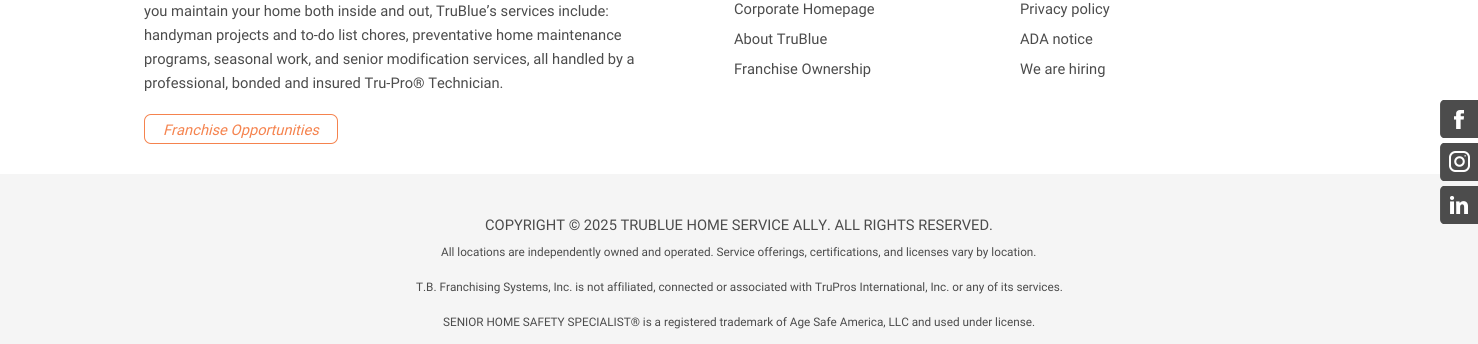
#include <cairo.h>
#include <math.h>
#include <stddef.h>

typedef struct { const char *family; double size; int italic, bold; unsigned color; } style_t;
static cairo_t *ctx;

static void ink(unsigned color) {
    cairo_set_source_rgb(ctx, (color >> 16) / 255.0, (color >> 8 & 255) / 255.0, (color & 255) / 255.0);
}

static void write(double x, double y, const char *s, const style_t *st) {
    cairo_select_font_face(ctx, st->family, st->italic ? CAIRO_FONT_SLANT_ITALIC : CAIRO_FONT_SLANT_NORMAL,
        st->bold ? CAIRO_FONT_WEIGHT_BOLD : CAIRO_FONT_WEIGHT_NORMAL);
    cairo_set_font_size(ctx, st->size);
    ink(st->color);
    cairo_move_to(ctx, x, y);
    cairo_show_text(ctx, s);
}

static void block(double x, double y, double w, double h, unsigned color) {
    ink(color);
    cairo_rectangle(ctx, x, y, w, h);
    cairo_fill(ctx);
}

static void round_path(double x, double y, double w, double h, double r) {
    cairo_new_sub_path(ctx);
    cairo_arc(ctx, x + w - r, y + h - r, r, 0, M_PI / 2);
    cairo_arc(ctx, x + r, y + h - r, r, M_PI / 2, M_PI);
    cairo_arc(ctx, x + r, y + r, r, M_PI, 1.5 * M_PI);
    cairo_arc(ctx, x + w - r, y + r, r, 1.5 * M_PI, 2 * M_PI);
    cairo_close_path(ctx);
}

static void paste(const char *path, double x, double y, double w, double h) {
    cairo_surface_t *image = cairo_image_surface_create_from_png(path);
    cairo_save(ctx);
    cairo_set_source_surface(ctx, image, x, y);
    cairo_rectangle(ctx, x, y, w, h);
    cairo_fill(ctx);
    cairo_restore(ctx);
    cairo_surface_destroy(image);
}

static const style_t s1 = {"Roboto", 15, 0, 0, 0x4b4b4b};
static const style_t s2 = {"Roboto", 15, 1, 0, 0xf5834e};
static const style_t s3 = {"Roboto", 12, 0, 0, 0x4b4b4b};

int main(void) {
    cairo_surface_t *surface = cairo_image_surface_create(CAIRO_FORMAT_RGB24, 1478, 344);
    ctx = cairo_create(surface);
    cairo_font_options_t *options = cairo_font_options_create();
    cairo_font_options_set_hint_metrics(options, CAIRO_HINT_METRICS_OFF);
    cairo_font_options_set_hint_style(options, CAIRO_HINT_STYLE_NONE);
    cairo_set_font_options(ctx, options);
    cairo_set_miter_limit(ctx, 4);
    ink(0xffffff);
    cairo_paint(ctx);
    write(144, 16, "you maintain your home both inside and out, TruBlue’s services include:", &s1);
    write(144, 40, "handyman projects and to-do list chores, preventative home maintenance", &s1);
    write(144, 64, "programs, seasonal work, and senior modification services, all handled by a", &s1);
    write(144, 88, "professional, bonded and insured Tru-Pro® Technician.", &s1);
    round_path(144.5, 114.5, 193, 29, 6.5);
    ink(0xf5834e);
    cairo_set_line_width(ctx, 1);
    cairo_stroke(ctx);
    write(163, 135, "Franchise Opportunities", &s2);
    write(734, 14, "Corporate Homepage", &s1);
    write(734, 44, "About TruBlue", &s1);
    write(734, 74, "Franchise Ownership", &s1);
    write(1020, 14, "Privacy policy", &s1);
    write(1020, 44, "ADA notice", &s1);
    write(1020, 74, "We are hiring", &s1);
    block(0, 174, 1478, 170, 0xf5f5f5);
    write(485, 230, "COPYRIGHT © 2025 TRUBLUE HOME SERVICE ALLY. ALL RIGHTS RESERVED.", &s1);
    write(441, 256, "All locations are independently owned and operated. Service offerings, certifications, and licenses vary by location.", &s3);
    write(416, 291, "T.B. Franchising Systems, Inc. is not affiliated, connected or associated with TruPros International, Inc. or any of its services.", &s3);
    write(443, 326, "SENIOR HOME SAFETY SPECIALIST® is a registered trademark of Age Safe America, LLC and used under license.", &s3);
    paste("pic1.png", 1440, 100, 38, 38);
    paste("pic2.png", 1440, 143, 38, 38);
    paste("pic3.png", 1440, 186, 38, 38);
    cairo_surface_write_to_png(surface, "screenshot.png");
    cairo_font_options_destroy(options);
    cairo_destroy(ctx);
    cairo_surface_destroy(surface);
    return 0;
}
